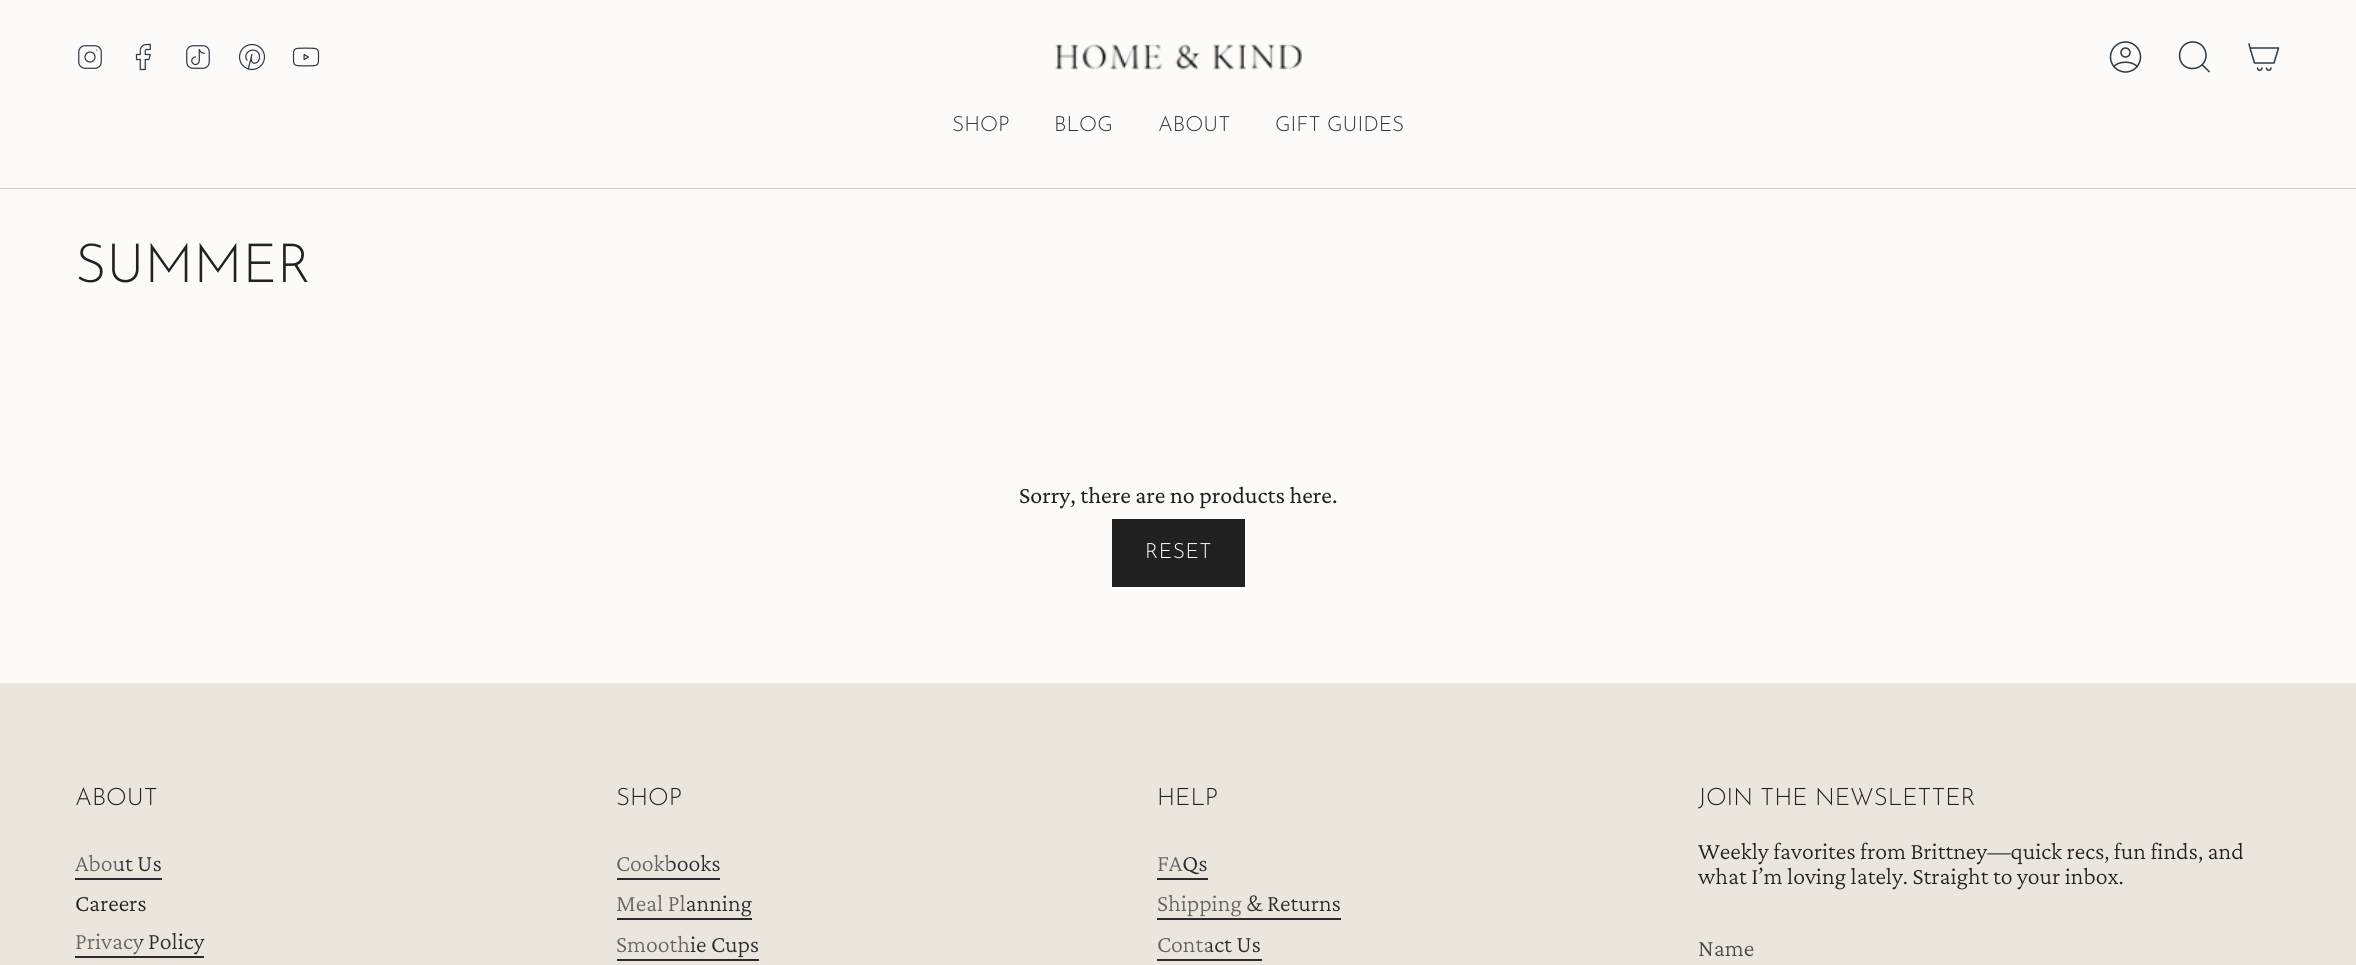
#include <cairo.h>
#include <math.h>
#include <stddef.h>

typedef struct { const char *family; double size; int italic, bold; unsigned color; } style_t;
static cairo_t *ctx;

static void ink(unsigned color) {
    cairo_set_source_rgb(ctx, (color >> 16) / 255.0, (color >> 8 & 255) / 255.0, (color & 255) / 255.0);
}

static void write(double x, double y, const char *s, const style_t *st) {
    cairo_select_font_face(ctx, st->family, st->italic ? CAIRO_FONT_SLANT_ITALIC : CAIRO_FONT_SLANT_NORMAL,
        st->bold ? CAIRO_FONT_WEIGHT_BOLD : CAIRO_FONT_WEIGHT_NORMAL);
    cairo_set_font_size(ctx, st->size);
    ink(st->color);
    cairo_move_to(ctx, x, y);
    cairo_show_text(ctx, s);
}

static void write_spaced(double x, double y, const char *s, double letter, double word) {
    cairo_move_to(ctx, x, y);
    while (*s) {
        char ch[5] = {0};
        int n = 0;
        do ch[n++] = *s++; while ((*s & 0xC0) == 0x80);
        cairo_show_text(ctx, ch);
        cairo_rel_move_to(ctx, letter + word * (*ch == ' '), 0);
    }
}

static void block(double x, double y, double w, double h, unsigned color) {
    ink(color);
    cairo_rectangle(ctx, x, y, w, h);
    cairo_fill(ctx);
}

static void paste(const char *path, double x, double y, double w, double h) {
    cairo_surface_t *image = cairo_image_surface_create_from_png(path);
    cairo_save(ctx);
    cairo_set_source_surface(ctx, image, x, y);
    cairo_rectangle(ctx, x, y, w, h);
    cairo_fill(ctx);
    cairo_restore(ctx);
    cairo_surface_destroy(image);
}

static const style_t s1 = {"Josefin Sans Light", 21, 0, 0, 0x2c3741};
static const style_t s2 = {"Josefin Sans Light", 54, 0, 0, 0x212121};
static const style_t s3 = {"Crimson Pro", 24, 0, 0, 0x212121};
static const style_t s4 = {"Josefin Sans Light", 24, 0, 0, 0x212121};
static const style_t s5 = {"Crimson Pro Light", 24, 0, 0, 0x212121};
static const style_t s6 = {"Crimson Pro Light", 24, 0, 0, 0x494847};

int main(void) {
    cairo_surface_t *surface = cairo_image_surface_create(CAIRO_FORMAT_RGB24, 2356, 965);
    ctx = cairo_create(surface);
    cairo_font_options_t *options = cairo_font_options_create();
    cairo_font_options_set_hint_metrics(options, CAIRO_HINT_METRICS_OFF);
    cairo_font_options_set_hint_style(options, CAIRO_HINT_STYLE_NONE);
    cairo_set_font_options(ctx, options);
    cairo_set_miter_limit(ctx, 4);
    cairo_pattern_t *gradient;
    ink(0xfcfbf9);
    cairo_paint(ctx);
    paste("pic1.png", 78, 45, 24, 24);
    paste("pic2.png", 135, 43, 16, 28);
    paste("pic3.png", 186, 45, 24, 24);
    paste("pic4.png", 238, 43, 28, 28);
    paste("pic5.png", 292, 47, 28, 20);
    paste("pic6.png", 1055, 44, 247, 26);
    paste("pic7.png", 2109, 41, 33, 32);
    cairo_new_path(ctx);
    cairo_move_to(ctx, 2193, 42);
    cairo_curve_to(ctx, 2205.5, 42, 2211, 58.5, 2200.5, 66);
    cairo_curve_to(ctx, 2198, 68, 2195, 68.5, 2192, 68.5);
    cairo_curve_to(ctx, 2175, 68, 2175.5, 42, 2193, 42);
    cairo_close_path(ctx);
    cairo_move_to(ctx, 2202, 64.5);
    cairo_line_to(ctx, 2209.5, 72);
    ink(0x2c3741);
    cairo_set_line_width(ctx, 1.5);
    cairo_stroke(ctx);
    cairo_new_path(ctx);
    cairo_move_to(ctx, 2250, 48);
    cairo_line_to(ctx, 2278.5, 48);
    cairo_line_to(ctx, 2274, 63);
    cairo_line_to(ctx, 2254.5, 63);
    cairo_close_path(ctx);
    cairo_move_to(ctx, 2250, 48);
    cairo_line_to(ctx, 2249, 44);
    cairo_move_to(ctx, 2262, 68);
    cairo_curve_to(ctx, 2262, 71, 2257.5, 71, 2257.5, 68);
    cairo_move_to(ctx, 2271, 68);
    cairo_curve_to(ctx, 2271, 71, 2266.5, 71, 2266.5, 68);
    cairo_set_line_cap(ctx, CAIRO_LINE_CAP_ROUND);
    cairo_set_line_join(ctx, CAIRO_LINE_JOIN_ROUND);
    cairo_stroke(ctx);
    write(952, 131, "SHOP", &s1);
    write(1054, 131, "BLOG", &s1);
    write(1158, 131, "ABOUT", &s1);
    write(1275, 131, "GIFT GUIDES", &s1);
    block(0, 188, 2356, 1, 0xd1d0ce);
    write(75, 282, "SUMMER", &s2);
    write(1019, 503, "Sorry, there are no products here.", &s3);
    block(1112, 519, 133, 68, 0x212121);
    cairo_select_font_face(ctx, "Josefin Sans Light", CAIRO_FONT_SLANT_NORMAL, CAIRO_FONT_WEIGHT_NORMAL);
    cairo_set_font_size(ctx, 21);
    ink(0xffffff);
    write_spaced(1145, 558, "RESET", 0.5, 0);
    block(0, 683, 2356, 282, 0xeae6dd);
    write(75, 805, "ABOUT", &s4);
    cairo_select_font_face(ctx, "Crimson Pro Light", CAIRO_FONT_SLANT_NORMAL, CAIRO_FONT_WEIGHT_NORMAL);
    gradient = cairo_pattern_create_linear(75, 864, 162, 864);
    cairo_pattern_add_color_stop_rgba(gradient, 0, 0.384, 0.392, 0.388, 1);
    cairo_pattern_add_color_stop_rgba(gradient, 0.5, 0.384, 0.392, 0.388, 1);
    cairo_pattern_add_color_stop_rgba(gradient, 0.5, 0.157, 0.173, 0.18, 1);
    cairo_pattern_add_color_stop_rgba(gradient, 1, 0.157, 0.173, 0.18, 1);
    cairo_set_source(ctx, gradient);
    cairo_pattern_destroy(gradient);
    cairo_move_to(ctx, 75, 871);
    cairo_show_text(ctx, "About Us");
    block(75, 878, 87, 2, 0x282c2e);
    write(75, 911, "Careers", &s5);
    gradient = cairo_pattern_create_linear(75, 942, 204, 942);
    cairo_pattern_add_color_stop_rgba(gradient, 0, 0.384, 0.392, 0.388, 1);
    cairo_pattern_add_color_stop_rgba(gradient, 0.5, 0.384, 0.392, 0.388, 1);
    cairo_pattern_add_color_stop_rgba(gradient, 0.5, 0.157, 0.173, 0.18, 1);
    cairo_pattern_add_color_stop_rgba(gradient, 1, 0.157, 0.173, 0.18, 1);
    cairo_set_source(ctx, gradient);
    cairo_pattern_destroy(gradient);
    cairo_move_to(ctx, 75, 949);
    cairo_show_text(ctx, "Privacy Policy");
    block(75, 956, 129, 2, 0x282c2e);
    write(616, 805, "SHOP", &s4);
    cairo_select_font_face(ctx, "Crimson Pro Light", CAIRO_FONT_SLANT_NORMAL, CAIRO_FONT_WEIGHT_NORMAL);
    gradient = cairo_pattern_create_linear(616, 864, 721, 864);
    cairo_pattern_add_color_stop_rgba(gradient, 0, 0.384, 0.392, 0.388, 1);
    cairo_pattern_add_color_stop_rgba(gradient, 0.5, 0.384, 0.392, 0.388, 1);
    cairo_pattern_add_color_stop_rgba(gradient, 0.5, 0.157, 0.173, 0.18, 1);
    cairo_pattern_add_color_stop_rgba(gradient, 1, 0.157, 0.173, 0.18, 1);
    cairo_set_source(ctx, gradient);
    cairo_pattern_destroy(gradient);
    cairo_move_to(ctx, 616, 871);
    cairo_show_text(ctx, "Cookbooks");
    block(617, 878, 103, 2, 0x282c2e);
    gradient = cairo_pattern_create_linear(616, 905, 752, 905);
    cairo_pattern_add_color_stop_rgba(gradient, 0, 0.384, 0.392, 0.388, 1);
    cairo_pattern_add_color_stop_rgba(gradient, 0.5, 0.384, 0.392, 0.388, 1);
    cairo_pattern_add_color_stop_rgba(gradient, 0.5, 0.157, 0.173, 0.18, 1);
    cairo_pattern_add_color_stop_rgba(gradient, 1, 0.157, 0.173, 0.18, 1);
    cairo_set_source(ctx, gradient);
    cairo_pattern_destroy(gradient);
    cairo_move_to(ctx, 616, 911);
    cairo_show_text(ctx, "Meal Planning");
    block(617, 918, 135, 2, 0x282c2e);
    gradient = cairo_pattern_create_linear(616, 945, 759, 945);
    cairo_pattern_add_color_stop_rgba(gradient, 0, 0.384, 0.392, 0.388, 1);
    cairo_pattern_add_color_stop_rgba(gradient, 0.5, 0.384, 0.392, 0.388, 1);
    cairo_pattern_add_color_stop_rgba(gradient, 0.5, 0.157, 0.173, 0.18, 1);
    cairo_pattern_add_color_stop_rgba(gradient, 1, 0.157, 0.173, 0.18, 1);
    cairo_set_source(ctx, gradient);
    cairo_pattern_destroy(gradient);
    cairo_move_to(ctx, 616, 952);
    cairo_show_text(ctx, "Smoothie Cups");
    block(617, 959, 142, 2, 0x282c2e);
    write(1157, 805, "HELP", &s4);
    cairo_select_font_face(ctx, "Crimson Pro Light", CAIRO_FONT_SLANT_NORMAL, CAIRO_FONT_WEIGHT_NORMAL);
    gradient = cairo_pattern_create_linear(1157, 864, 1208, 864);
    cairo_pattern_add_color_stop_rgba(gradient, 0, 0.384, 0.392, 0.388, 1);
    cairo_pattern_add_color_stop_rgba(gradient, 0.5, 0.384, 0.392, 0.388, 1);
    cairo_pattern_add_color_stop_rgba(gradient, 0.5, 0.157, 0.173, 0.18, 1);
    cairo_pattern_add_color_stop_rgba(gradient, 1, 0.157, 0.173, 0.18, 1);
    cairo_set_source(ctx, gradient);
    cairo_pattern_destroy(gradient);
    cairo_move_to(ctx, 1157, 871);
    cairo_show_text(ctx, "FAQs");
    block(1157, 878, 51, 2, 0x282c2e);
    gradient = cairo_pattern_create_linear(1157, 905, 1341, 905);
    cairo_pattern_add_color_stop_rgba(gradient, 0, 0.384, 0.392, 0.388, 1);
    cairo_pattern_add_color_stop_rgba(gradient, 0.5, 0.384, 0.392, 0.388, 1);
    cairo_pattern_add_color_stop_rgba(gradient, 0.5, 0.157, 0.173, 0.18, 1);
    cairo_pattern_add_color_stop_rgba(gradient, 1, 0.157, 0.173, 0.18, 1);
    cairo_set_source(ctx, gradient);
    cairo_pattern_destroy(gradient);
    cairo_move_to(ctx, 1157, 911);
    cairo_show_text(ctx, "Shipping & Returns");
    block(1157, 918, 184, 2, 0x282c2e);
    gradient = cairo_pattern_create_linear(1157, 945, 1261, 945);
    cairo_pattern_add_color_stop_rgba(gradient, 0, 0.384, 0.392, 0.388, 1);
    cairo_pattern_add_color_stop_rgba(gradient, 0.5, 0.384, 0.392, 0.388, 1);
    cairo_pattern_add_color_stop_rgba(gradient, 0.5, 0.157, 0.173, 0.18, 1);
    cairo_pattern_add_color_stop_rgba(gradient, 1, 0.157, 0.173, 0.18, 1);
    cairo_set_source(ctx, gradient);
    cairo_pattern_destroy(gradient);
    cairo_move_to(ctx, 1157, 952);
    cairo_show_text(ctx, "Contact Us");
    block(1157, 959, 105, 2, 0x282c2e);
    write(1698, 805, "JOIN THE NEWSLETTER", &s4);
    write(1698, 859, "Weekly favorites from Brittney—quick recs, fun finds, and", &s5);
    write(1698, 884, "what I’m loving lately. Straight to your inbox.", &s5);
    write(1698, 956, "Name", &s6);
    cairo_surface_write_to_png(surface, "screenshot.png");
    cairo_font_options_destroy(options);
    cairo_destroy(ctx);
    cairo_surface_destroy(surface);
    return 0;
}
